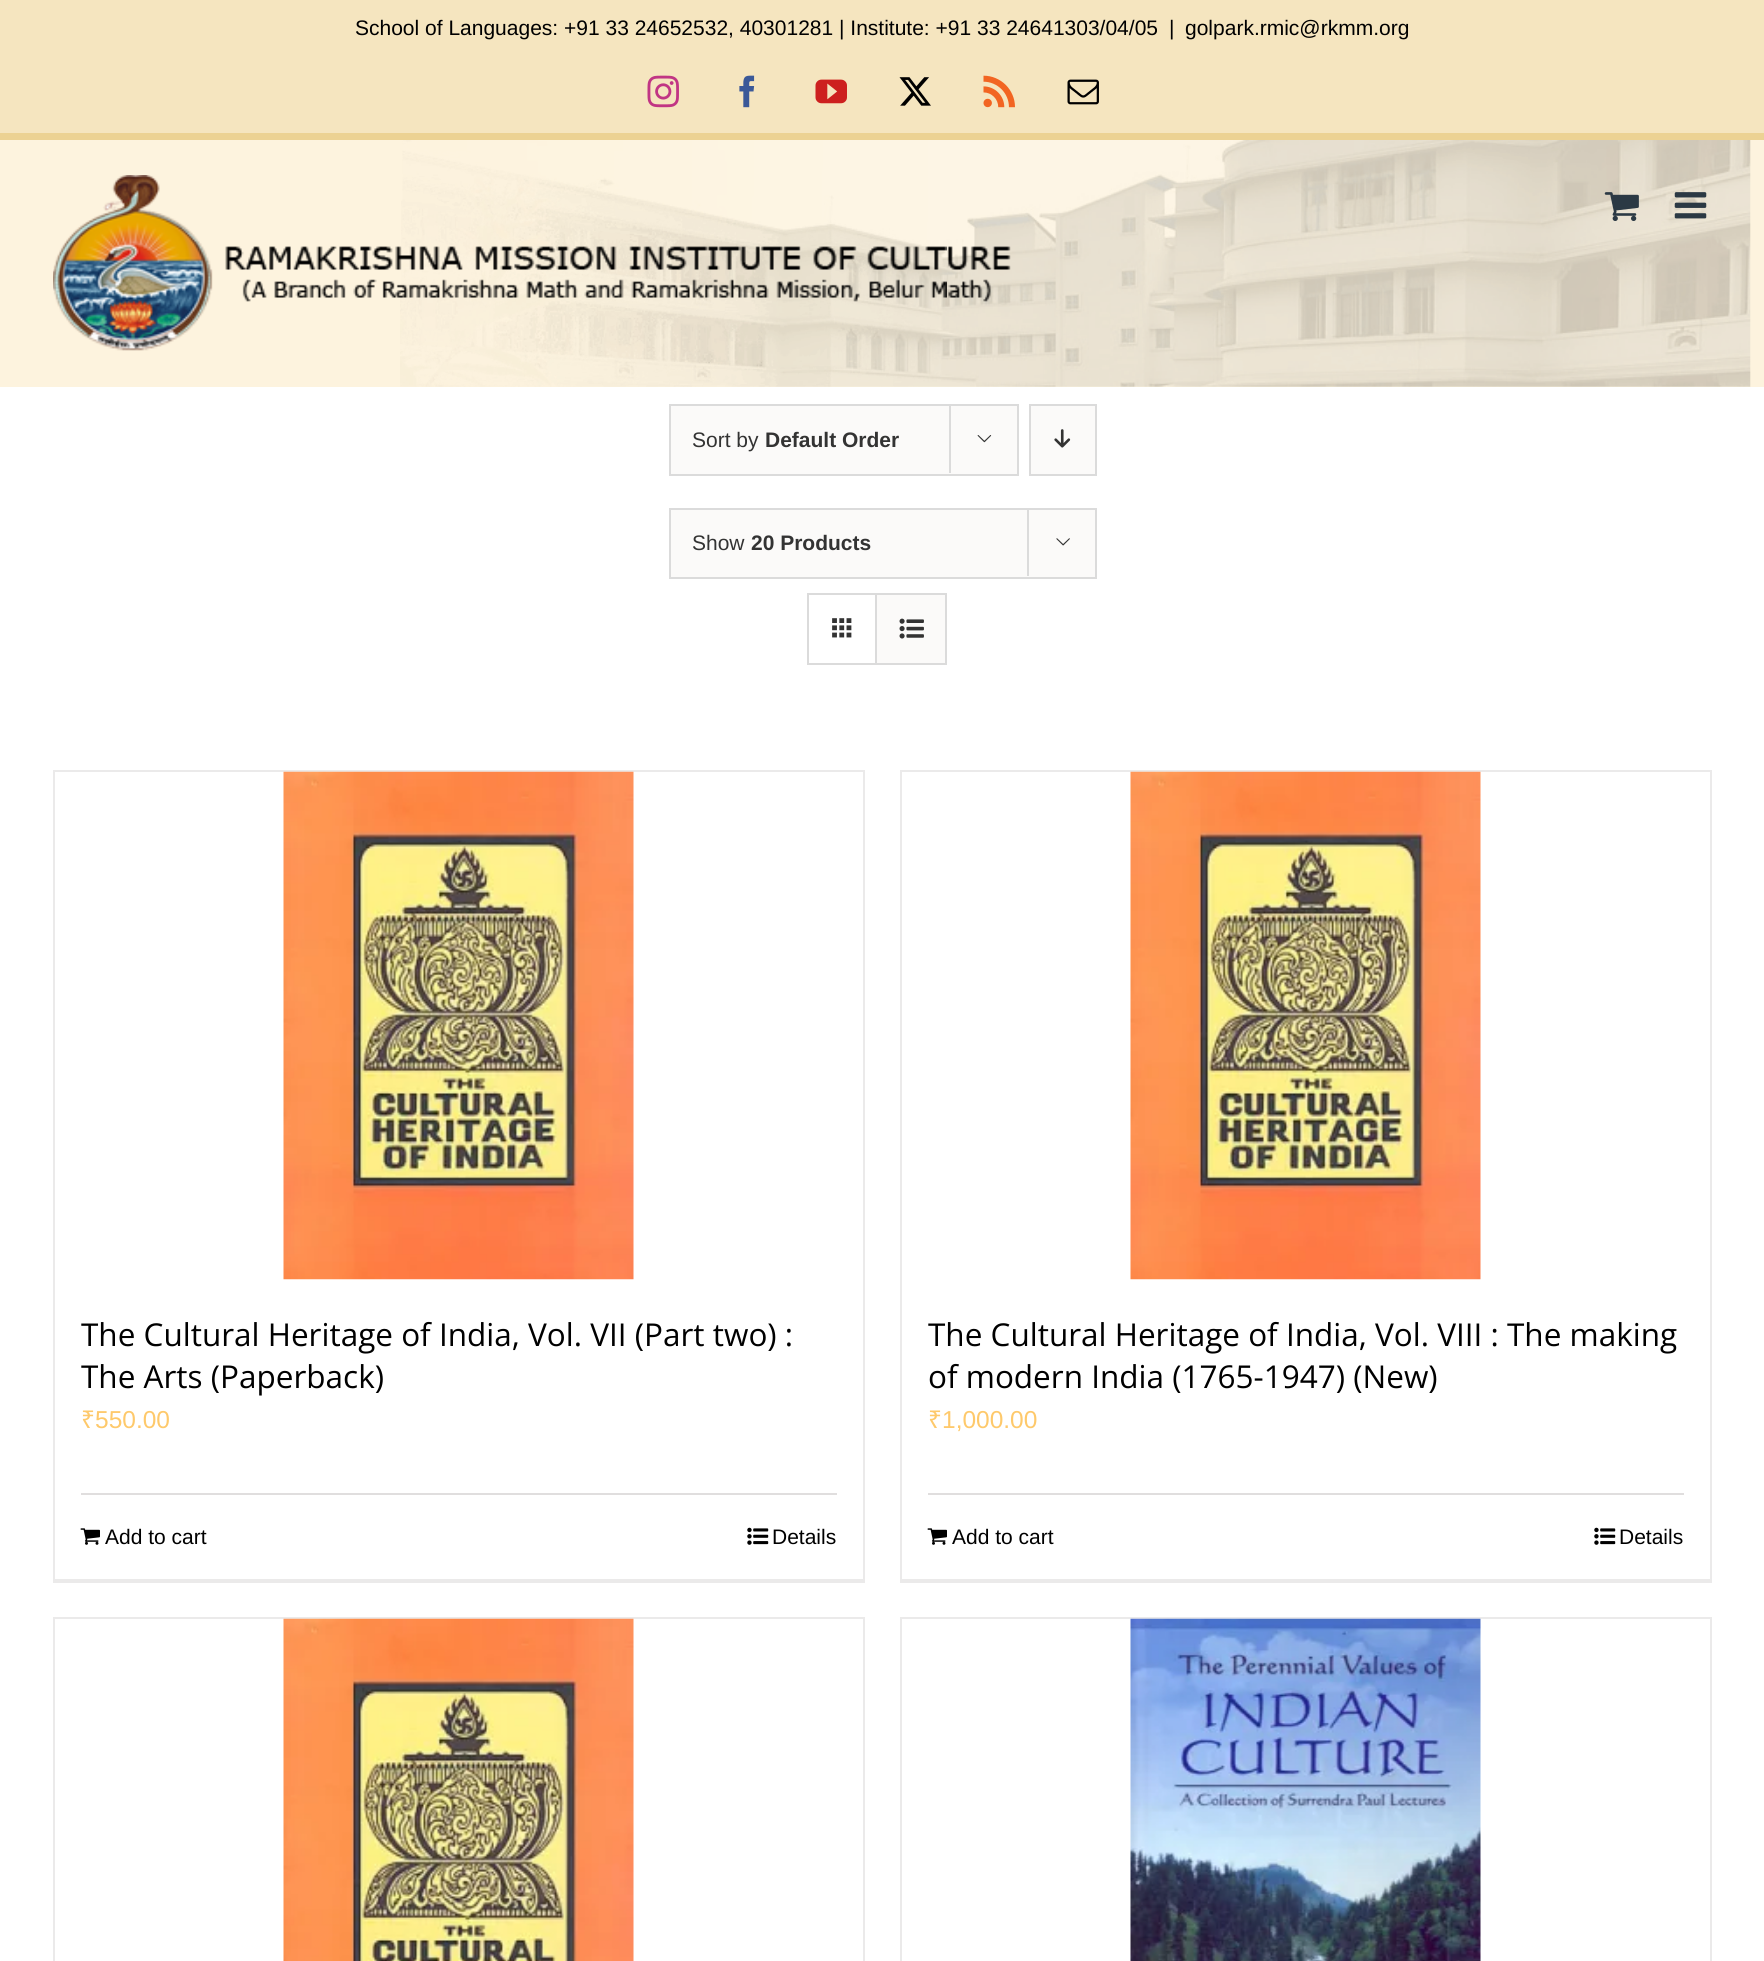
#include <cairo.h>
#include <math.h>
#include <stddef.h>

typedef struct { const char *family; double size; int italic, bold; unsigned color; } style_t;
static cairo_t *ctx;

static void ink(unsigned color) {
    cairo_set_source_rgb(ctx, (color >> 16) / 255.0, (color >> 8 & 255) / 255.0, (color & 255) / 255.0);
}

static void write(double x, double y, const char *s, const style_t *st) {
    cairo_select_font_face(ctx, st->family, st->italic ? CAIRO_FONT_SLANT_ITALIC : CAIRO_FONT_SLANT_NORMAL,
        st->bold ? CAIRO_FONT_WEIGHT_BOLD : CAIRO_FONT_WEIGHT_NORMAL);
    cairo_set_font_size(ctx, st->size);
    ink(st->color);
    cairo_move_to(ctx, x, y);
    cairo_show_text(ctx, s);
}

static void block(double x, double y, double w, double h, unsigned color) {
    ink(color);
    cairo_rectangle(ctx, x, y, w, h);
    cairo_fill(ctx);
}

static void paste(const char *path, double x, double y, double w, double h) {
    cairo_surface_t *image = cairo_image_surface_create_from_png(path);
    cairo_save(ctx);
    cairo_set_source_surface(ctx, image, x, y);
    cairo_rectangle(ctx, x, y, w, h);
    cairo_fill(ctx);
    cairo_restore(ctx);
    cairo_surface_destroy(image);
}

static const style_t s1 = {"Liberation Sans", 21, 0, 0, 0x000000};
static const style_t s2 = {"Liberation Sans", 21, 0, 0, 0x333333};
static const style_t s3 = {"Liberation Sans", 21, 0, 1, 0x333333};
static const style_t s4 = {"Open Sans", 31.5, 0, 0, 0x000000};
static const style_t s5 = {"Noto Sans", 24.5, 0, 0, 0xfec96b};
static const style_t s6 = {"Liberation Sans", 24.5, 0, 0, 0xfec96b};

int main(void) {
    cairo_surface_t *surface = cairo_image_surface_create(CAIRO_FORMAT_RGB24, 1764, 1961);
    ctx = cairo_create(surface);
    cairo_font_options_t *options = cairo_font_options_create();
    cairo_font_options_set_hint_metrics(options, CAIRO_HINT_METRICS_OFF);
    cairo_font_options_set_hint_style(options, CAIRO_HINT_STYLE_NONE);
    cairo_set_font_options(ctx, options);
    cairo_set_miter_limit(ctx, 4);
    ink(0xffffff);
    cairo_paint(ctx);
    block(0, 0, 1764, 133, 0xf5e5bf);
    block(0, 133, 1764, 7, 0xecd293);
    write(355, 35, "School of Languages: +91 33 24652532, 40301281 | Institute: +91 33 24641303/04/05", &s1);
    write(1169, 35, "|", &s1);
    write(1185, 35, "golpark.rmic@rkmm.org", &s1);
    paste("pic1.png", 647, 75, 32, 33);
    paste("pic2.png", 739, 75, 16, 33);
    paste("pic3.png", 815, 79, 32, 25);
    paste("pic4.png", 899, 77, 32, 29);
    paste("pic5.png", 983, 75, 32, 33);
    paste("pic6.png", 1067, 79, 32, 26);
    block(0, 140, 1764, 247, 0xfdf3de);
    paste("pic7.png", 400, 140, 1351, 247);
    paste("pic8.png", 53, 175, 958, 176);
    paste("pic9.png", 1604, 192, 35, 29);
    paste("pic10.png", 1674, 192, 33, 27);
    ink(0xfbfaf9);
    cairo_rectangle(ctx, 670, 405, 348, 70);
    cairo_fill_preserve(ctx);
    ink(0xdbdbdb);
    cairo_stroke(ctx);
    write(692, 447, "Sort by", &s2);
    write(765, 447, "Default Order", &s3);
    block(949, 404, 2, 69, 0xdbdbdb);
    paste("pic11.png", 977, 435, 15, 8);
    ink(0xfbfaf9);
    cairo_rectangle(ctx, 1030, 405, 66, 70);
    cairo_fill_preserve(ctx);
    ink(0xdbdbdb);
    cairo_stroke(ctx);
    paste("pic12.png", 1054, 429, 17, 19);
    ink(0xfbfaf9);
    cairo_rectangle(ctx, 670, 509, 426, 69);
    cairo_fill_preserve(ctx);
    ink(0xdbdbdb);
    cairo_stroke(ctx);
    write(692, 550, "Show", &s2);
    write(751, 550, "20 Products", &s3);
    block(1027, 508, 2, 68, 0xdbdbdb);
    paste("pic13.png", 1056, 538, 14, 8);
    cairo_rectangle(ctx, 808, 594, 138, 70);
    cairo_stroke(ctx);
    block(875, 595, 2, 68, 0xdbdbdb);
    paste("pic14.png", 832, 618, 20, 20);
    block(877, 595, 68, 68, 0xfbfaf9);
    paste("pic15.png", 899, 618, 25, 21);
    block(53, 770, 812, 2, 0xebeaea);
    block(863, 770, 2, 812, 0xebeaea);
    block(53, 1579, 812, 4, 0xebeaea);
    block(53, 770, 2, 812, 0xebeaea);
    paste("pic16.png", 283, 771, 351, 509);
    write(81, 1346, "The Cultural Heritage of India, Vol. VII (Part two) :", &s4);
    write(81, 1388, "The Arts (Paperback)", &s4);
    write(81, 1428, "₹", &s5);
    write(95, 1428, "550.00", &s6);
    block(81, 1493, 756, 2, 0xe0dede);
    paste("pic17.png", 80, 1528, 20, 17);
    write(105, 1544, "Add to cart", &s1);
    paste("pic18.png", 747, 1527, 22, 18);
    write(772, 1544, "Details", &s1);
    block(900, 770, 812, 2, 0xebeaea);
    block(1710, 770, 2, 812, 0xebeaea);
    block(900, 1579, 812, 4, 0xebeaea);
    block(900, 770, 2, 812, 0xebeaea);
    paste("pic19.png", 1130, 771, 351, 509);
    write(928, 1346, "The Cultural Heritage of India, Vol. VIII : The making", &s4);
    write(928, 1388, "of modern India (1765-1947) (New)", &s4);
    write(928, 1428, "₹", &s5);
    write(942, 1428, "1,000.00", &s6);
    block(928, 1493, 756, 2, 0xe0dede);
    paste("pic17.png", 927, 1528, 20, 17);
    write(952, 1544, "Add to cart", &s1);
    paste("pic18.png", 1594, 1527, 22, 18);
    write(1619, 1544, "Details", &s1);
    block(53, 1617, 812, 2, 0xebeaea);
    block(863, 1617, 2, 344, 0xebeaea);
    block(53, 1617, 2, 344, 0xebeaea);
    paste("pic20.png", 283, 1618, 351, 343);
    block(900, 1617, 812, 2, 0xebeaea);
    block(1710, 1617, 2, 344, 0xebeaea);
    block(900, 1617, 2, 344, 0xebeaea);
    paste("pic21.png", 1130, 1618, 351, 343);
    cairo_surface_write_to_png(surface, "screenshot.png");
    cairo_font_options_destroy(options);
    cairo_destroy(ctx);
    cairo_surface_destroy(surface);
    return 0;
}
